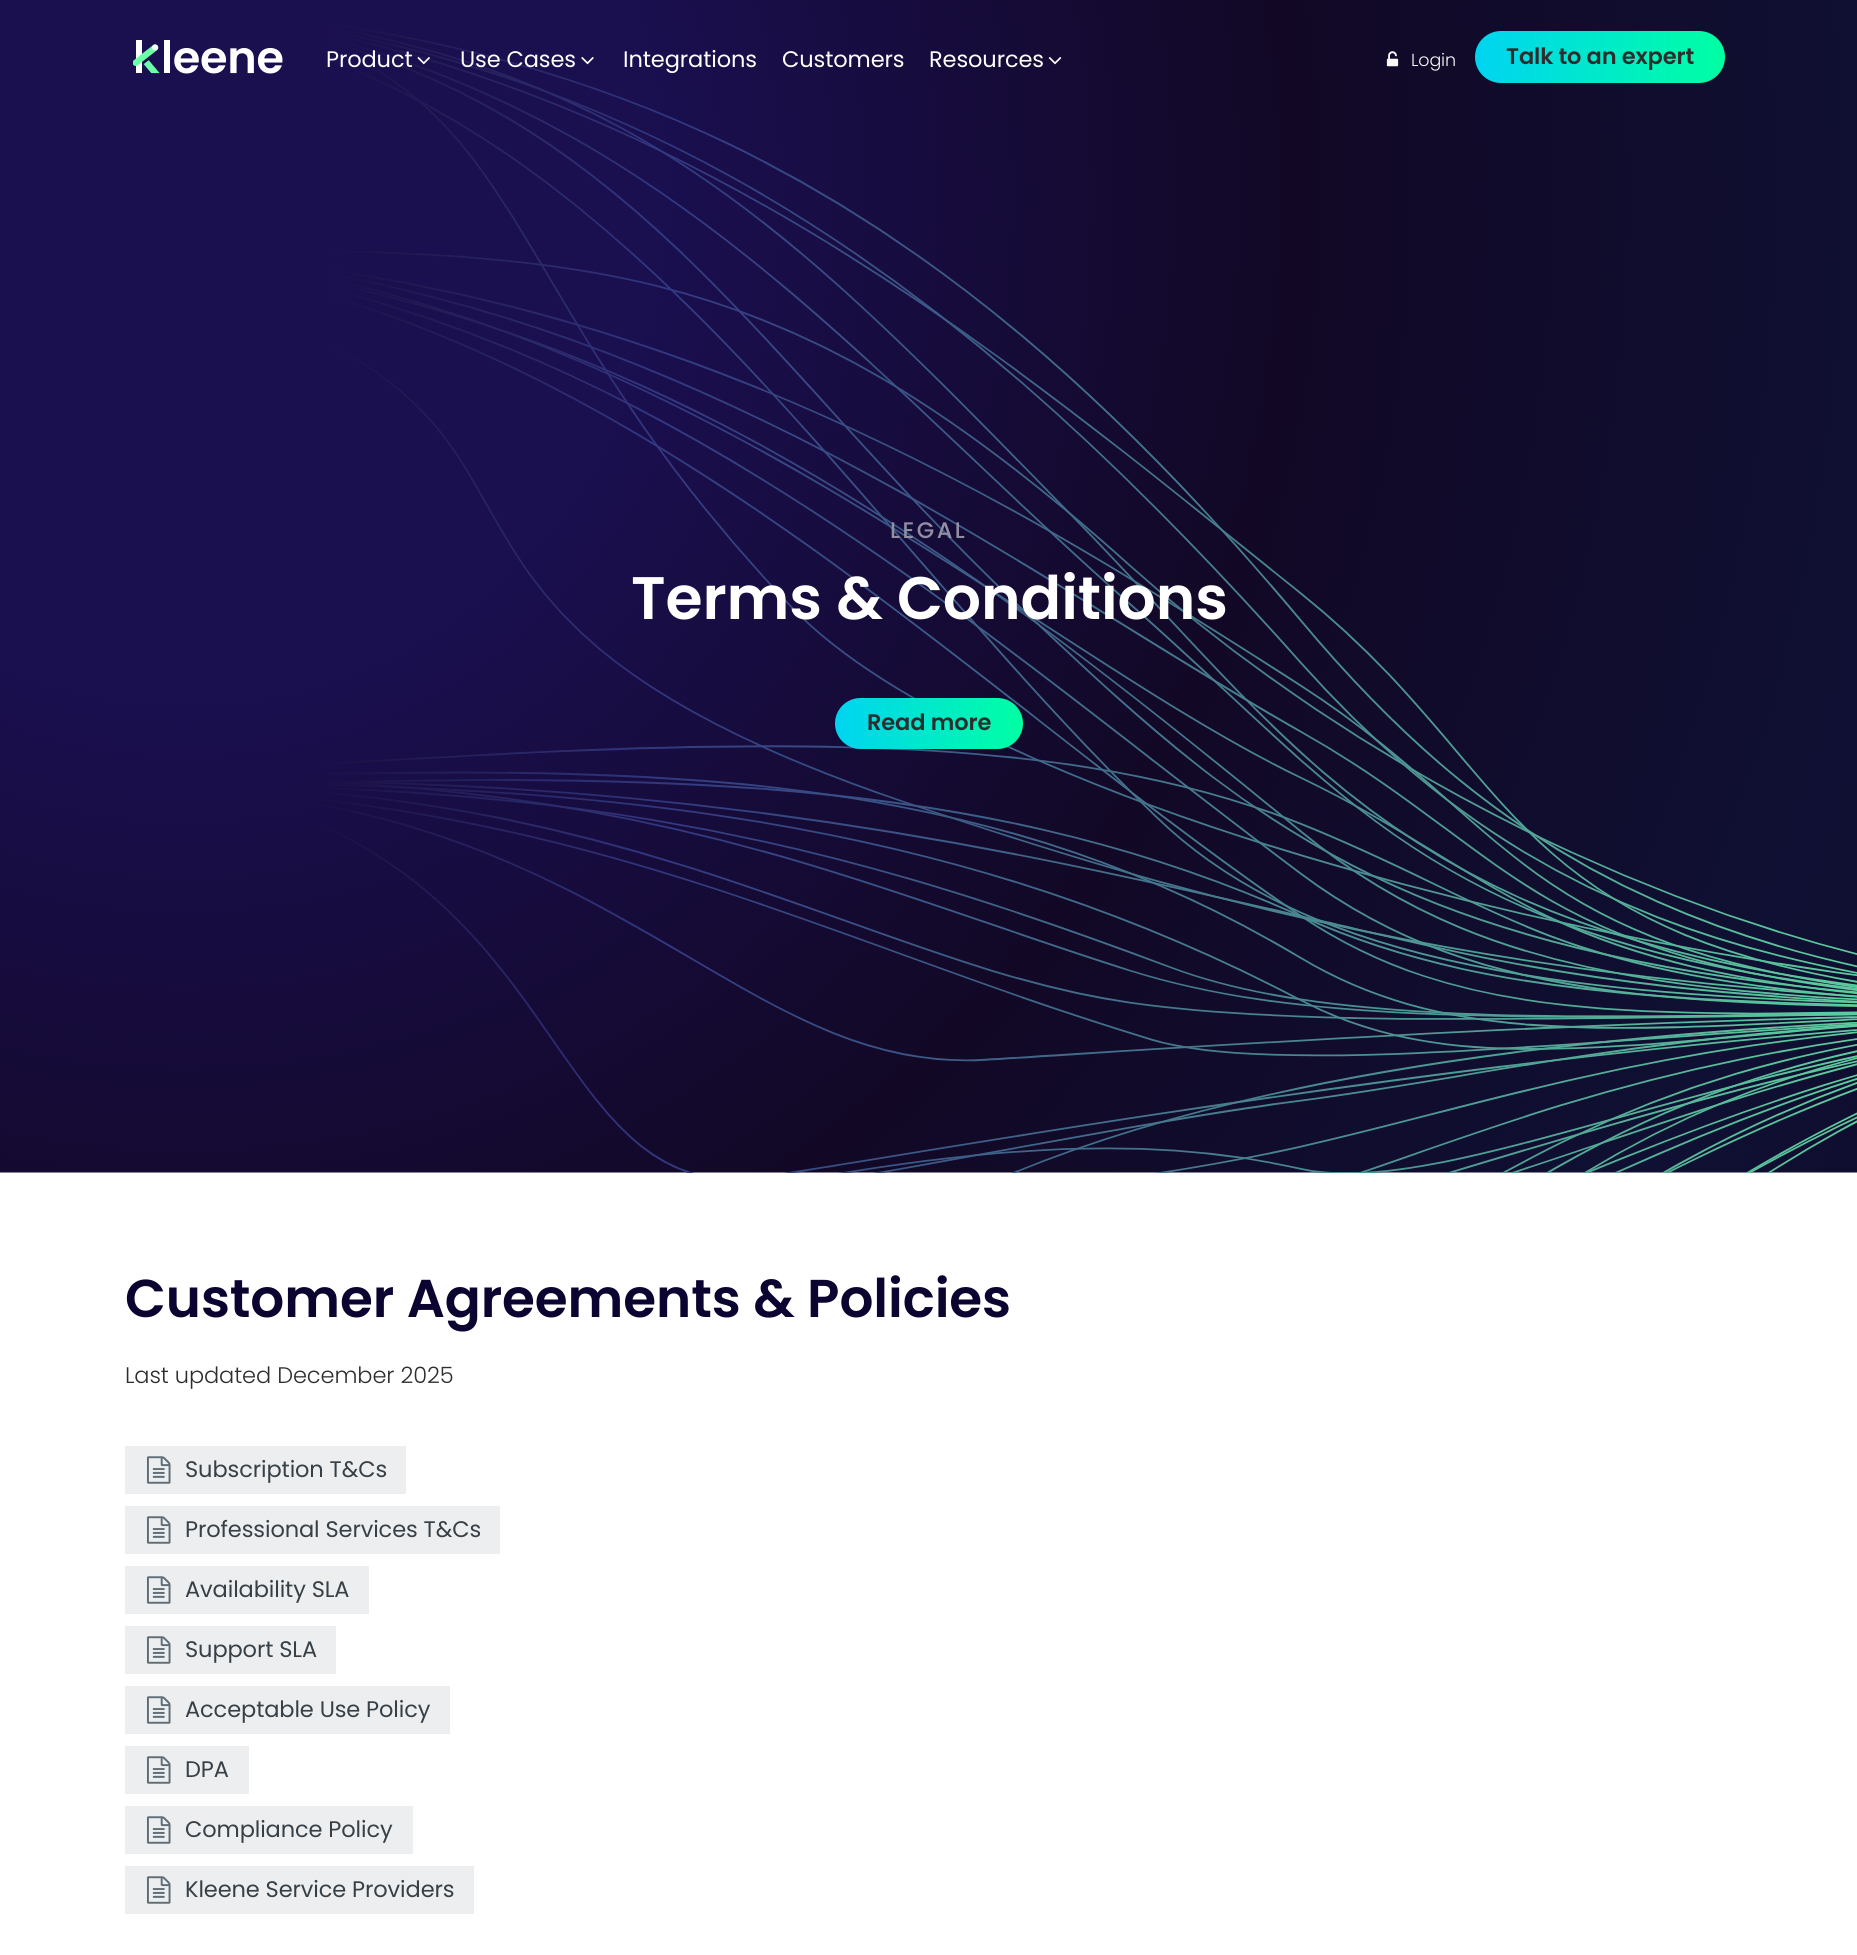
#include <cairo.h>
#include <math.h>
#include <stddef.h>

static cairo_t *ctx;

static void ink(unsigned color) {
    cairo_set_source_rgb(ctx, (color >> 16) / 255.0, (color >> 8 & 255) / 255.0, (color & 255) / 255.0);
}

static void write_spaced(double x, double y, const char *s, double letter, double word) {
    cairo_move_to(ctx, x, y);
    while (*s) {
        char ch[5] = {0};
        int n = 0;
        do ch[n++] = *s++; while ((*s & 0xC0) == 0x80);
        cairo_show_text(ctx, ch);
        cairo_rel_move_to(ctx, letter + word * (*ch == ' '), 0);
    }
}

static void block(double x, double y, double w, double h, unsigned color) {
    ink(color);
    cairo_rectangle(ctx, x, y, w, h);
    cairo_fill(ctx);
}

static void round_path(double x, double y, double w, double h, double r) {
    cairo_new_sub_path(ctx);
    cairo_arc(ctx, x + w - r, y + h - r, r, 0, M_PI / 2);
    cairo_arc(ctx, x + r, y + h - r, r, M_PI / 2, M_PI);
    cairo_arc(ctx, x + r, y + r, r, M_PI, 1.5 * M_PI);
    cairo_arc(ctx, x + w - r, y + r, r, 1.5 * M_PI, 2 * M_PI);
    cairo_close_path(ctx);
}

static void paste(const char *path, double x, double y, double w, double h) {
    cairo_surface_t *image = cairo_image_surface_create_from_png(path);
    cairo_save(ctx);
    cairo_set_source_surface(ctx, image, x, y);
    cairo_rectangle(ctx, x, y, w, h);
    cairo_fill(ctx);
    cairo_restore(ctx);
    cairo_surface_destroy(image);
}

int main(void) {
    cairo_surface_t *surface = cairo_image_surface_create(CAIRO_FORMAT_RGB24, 1857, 1955);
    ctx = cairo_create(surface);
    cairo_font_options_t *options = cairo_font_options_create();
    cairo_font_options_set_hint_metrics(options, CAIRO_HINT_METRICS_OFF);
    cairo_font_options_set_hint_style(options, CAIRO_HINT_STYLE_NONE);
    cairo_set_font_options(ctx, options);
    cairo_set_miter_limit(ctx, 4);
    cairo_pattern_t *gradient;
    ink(0xfbfbfb);
    cairo_paint(ctx);
    paste("pic6.png", 0, 0, 1857, 1173);
    paste("pic1.png", 133, 40, 150, 34);
    cairo_select_font_face(ctx, "Poppins", CAIRO_FONT_SLANT_NORMAL, CAIRO_FONT_WEIGHT_NORMAL);
    cairo_set_font_size(ctx, 22.5);
    ink(0xffffff);
    write_spaced(326, 67, "Product", -0.1, 0);
    paste("pic2.png", 417, 57, 13, 8);
    write_spaced(460, 67, "Use Cases", -0.1, 0);
    paste("pic3.png", 581, 57, 13, 8);
    write_spaced(623, 67, "Integrations", -0.1, 0);
    write_spaced(782, 67, "Customers", -0.1, 0);
    write_spaced(929, 67, "Resources", -0.1, 0);
    paste("pic4.png", 1048, 57, 14, 8);
    paste("pic5.png", 1386, 51, 13, 16);
    cairo_select_font_face(ctx, "Poppins Light", CAIRO_FONT_SLANT_NORMAL, CAIRO_FONT_WEIGHT_NORMAL);
    cairo_set_font_size(ctx, 17.5);
    ink(0xf9f9fa);
    write_spaced(1411, 66, "Login", -0.1, 0);
    gradient = cairo_pattern_create_linear(1475, 57, 1725, 57);
    cairo_pattern_add_color_stop_rgba(gradient, 0, 0, 0.831, 0.945, 1);
    cairo_pattern_add_color_stop_rgba(gradient, 1, 0, 1, 0.639, 1);
    cairo_set_source(ctx, gradient);
    cairo_pattern_destroy(gradient);
    round_path(1475, 31, 250, 52, 26);
    cairo_fill(ctx);
    cairo_select_font_face(ctx, "Poppins SemiBold", CAIRO_FONT_SLANT_NORMAL, CAIRO_FONT_WEIGHT_NORMAL);
    cairo_set_font_size(ctx, 22.5);
    ink(0x2d2d2d);
    write_spaced(1506, 64, "Talk to an expert", -0.1, 0);
    cairo_select_font_face(ctx, "Poppins Medium", CAIRO_FONT_SLANT_NORMAL, CAIRO_FONT_WEIGHT_NORMAL);
    ink(0x9190a2);
    write_spaced(890, 538, "LEGAL", 2.5, 0);
    cairo_select_font_face(ctx, "Poppins SemiBold", CAIRO_FONT_SLANT_NORMAL, CAIRO_FONT_WEIGHT_NORMAL);
    cairo_set_font_size(ctx, 60);
    ink(0xffffff);
    write_spaced(631, 619, "Terms & Conditions", -0.1, 0);
    gradient = cairo_pattern_create_linear(835, 723, 1023, 723);
    cairo_pattern_add_color_stop_rgba(gradient, 0, 0, 0.831, 0.945, 1);
    cairo_pattern_add_color_stop_rgba(gradient, 1, 0, 1, 0.639, 1);
    cairo_set_source(ctx, gradient);
    cairo_pattern_destroy(gradient);
    round_path(835, 698, 188, 51, 25.5);
    cairo_fill(ctx);
    cairo_set_font_size(ctx, 22.5);
    ink(0x2d2d2d);
    write_spaced(867, 730, "Read more", -0.1, 0);
    block(0, 1173, 1857, 782, 0xffffff);
    cairo_set_font_size(ctx, 53.25);
    ink(0x0b0330);
    write_spaced(125, 1317, "Customer Agreements & Policies", -0.1, 0);
    cairo_select_font_face(ctx, "Poppins Light", CAIRO_FONT_SLANT_NORMAL, CAIRO_FONT_WEIGHT_NORMAL);
    cairo_set_font_size(ctx, 22.5);
    ink(0x2d2d2d);
    write_spaced(125, 1383, "Last updated December 2025", -0.1, 0);
    block(125, 1446, 281, 48, 0xeceeef);
    paste("pic7.png", 146, 1456, 25, 28);
    cairo_select_font_face(ctx, "Poppins", CAIRO_FONT_SLANT_NORMAL, CAIRO_FONT_WEIGHT_NORMAL);
    ink(0x374047);
    write_spaced(185, 1477, "Subscription T&Cs", -0.1, 0);
    block(125, 1506, 375, 48, 0xeceeef);
    paste("pic7.png", 146, 1516, 25, 28);
    ink(0x374047);
    write_spaced(185, 1537, "Professional Services T&Cs", -0.1, 0);
    block(125, 1566, 244, 48, 0xeceeef);
    paste("pic7.png", 146, 1576, 25, 28);
    ink(0x374047);
    write_spaced(185, 1597, "Availability SLA", -0.1, 0);
    block(125, 1626, 211, 48, 0xeceeef);
    paste("pic7.png", 146, 1636, 25, 28);
    ink(0x374047);
    write_spaced(185, 1657, "Support SLA", -0.1, 0);
    block(125, 1686, 325, 48, 0xeceeef);
    paste("pic7.png", 146, 1696, 25, 28);
    ink(0x374047);
    write_spaced(185, 1717, "Acceptable Use Policy", -0.1, 0);
    block(125, 1746, 124, 48, 0xeceeef);
    paste("pic7.png", 146, 1756, 25, 28);
    ink(0x374047);
    write_spaced(185, 1777, "DPA", -0.1, 0);
    block(125, 1806, 288, 48, 0xeceeef);
    paste("pic7.png", 146, 1816, 25, 28);
    ink(0x374047);
    write_spaced(185, 1837, "Compliance Policy", -0.1, 0);
    block(125, 1866, 349, 48, 0xeceeef);
    paste("pic7.png", 146, 1876, 25, 28);
    ink(0x374047);
    write_spaced(185, 1897, "Kleene Service Providers", -0.1, 0);
    cairo_surface_write_to_png(surface, "screenshot.png");
    cairo_font_options_destroy(options);
    cairo_destroy(ctx);
    cairo_surface_destroy(surface);
    return 0;
}
